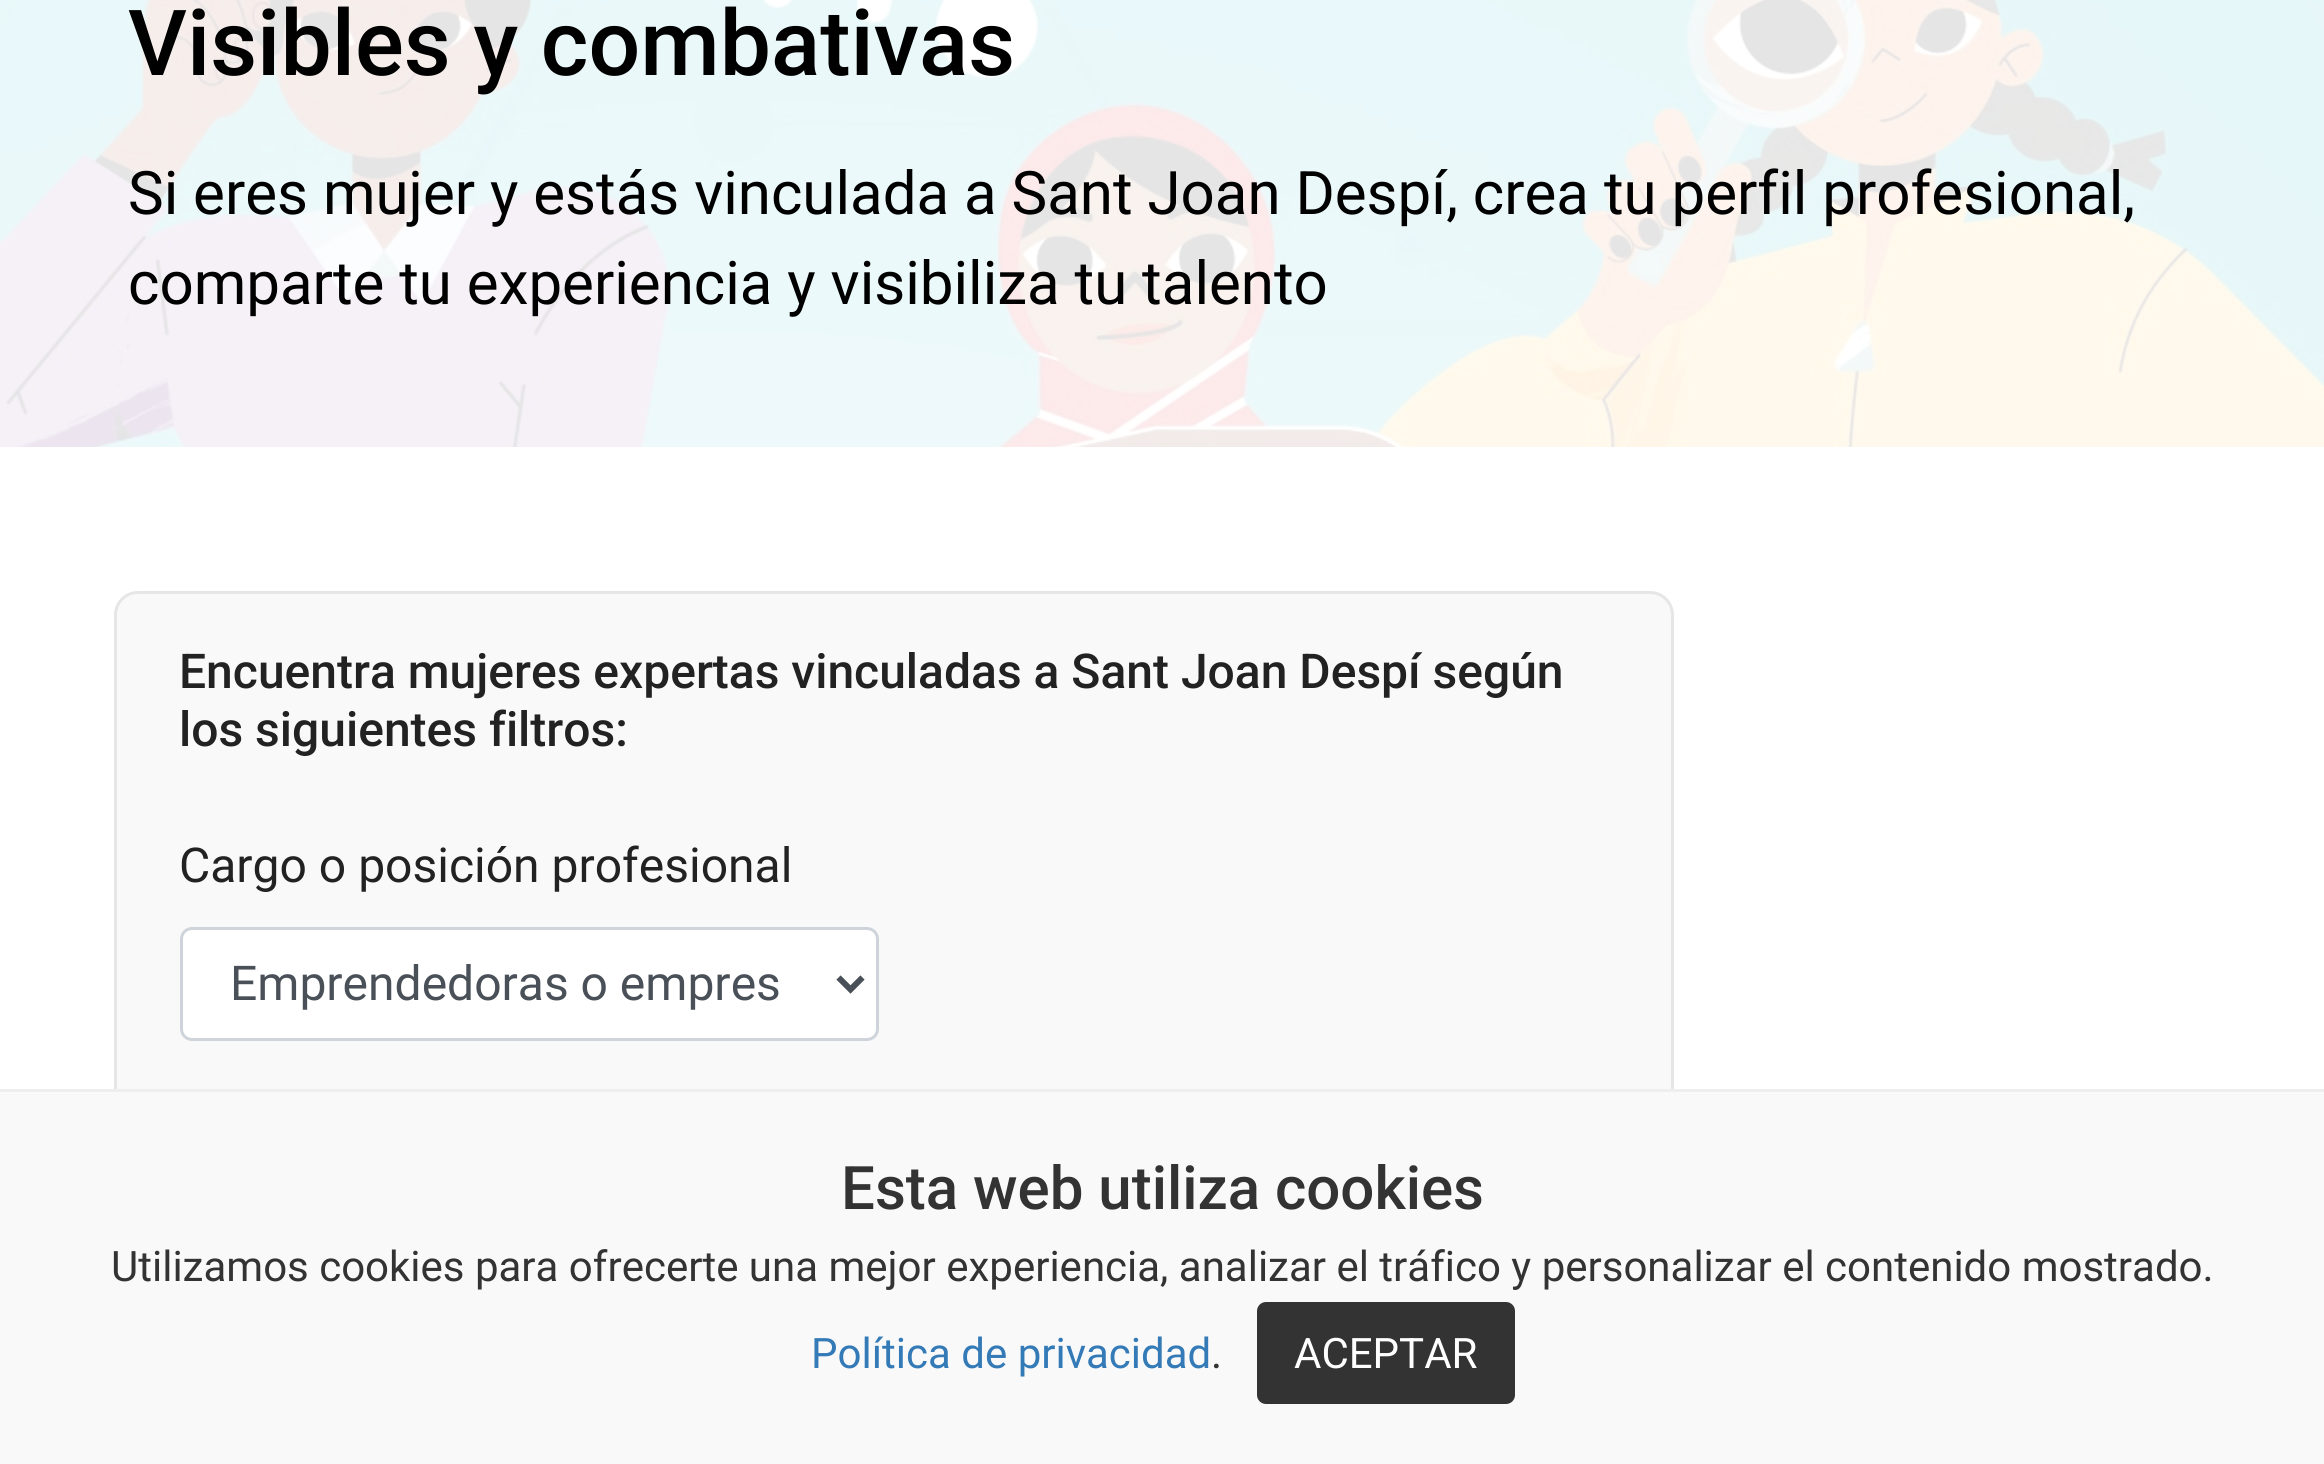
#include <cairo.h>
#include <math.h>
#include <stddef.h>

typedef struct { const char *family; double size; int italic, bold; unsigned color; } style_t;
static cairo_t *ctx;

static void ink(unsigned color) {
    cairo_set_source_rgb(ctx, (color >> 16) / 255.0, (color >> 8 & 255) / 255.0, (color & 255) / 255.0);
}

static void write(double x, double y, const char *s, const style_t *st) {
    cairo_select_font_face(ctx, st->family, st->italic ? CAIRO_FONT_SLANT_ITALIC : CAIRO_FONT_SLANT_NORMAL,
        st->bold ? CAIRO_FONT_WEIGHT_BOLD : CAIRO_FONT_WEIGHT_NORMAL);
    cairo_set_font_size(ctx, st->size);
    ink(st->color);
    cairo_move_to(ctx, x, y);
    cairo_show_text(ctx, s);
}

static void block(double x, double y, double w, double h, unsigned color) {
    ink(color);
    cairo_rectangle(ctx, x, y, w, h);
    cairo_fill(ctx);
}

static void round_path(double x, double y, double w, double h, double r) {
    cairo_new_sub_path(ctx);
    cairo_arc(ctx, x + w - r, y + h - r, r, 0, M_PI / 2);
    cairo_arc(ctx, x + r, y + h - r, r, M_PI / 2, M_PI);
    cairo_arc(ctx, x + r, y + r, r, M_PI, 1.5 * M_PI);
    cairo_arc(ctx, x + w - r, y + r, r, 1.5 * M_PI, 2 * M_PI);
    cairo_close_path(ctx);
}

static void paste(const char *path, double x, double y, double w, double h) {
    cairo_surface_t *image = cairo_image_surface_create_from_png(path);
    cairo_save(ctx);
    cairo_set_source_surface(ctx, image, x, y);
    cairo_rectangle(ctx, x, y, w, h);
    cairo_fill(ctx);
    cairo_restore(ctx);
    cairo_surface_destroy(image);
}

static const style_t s1 = {"Roboto Medium", 91.25, 0, 0, 0x000000};
static const style_t s2 = {"Roboto", 60, 0, 0, 0x000000};
static const style_t s3 = {"Roboto Medium", 48, 0, 0, 0x222222};
static const style_t s4 = {"Roboto", 48, 0, 0, 0x222222};
static const style_t s5 = {"Roboto", 48, 0, 0, 0x495057};
static const style_t s6 = {"Roboto Medium", 60, 0, 0, 0x333333};
static const style_t s7 = {"Roboto", 42, 0, 0, 0x333333};
static const style_t s8 = {"Roboto", 42, 0, 0, 0x337ab7};
static const style_t s9 = {"Roboto", 42, 0, 0, 0xffffff};

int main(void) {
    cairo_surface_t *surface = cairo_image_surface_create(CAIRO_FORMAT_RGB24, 2324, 1464);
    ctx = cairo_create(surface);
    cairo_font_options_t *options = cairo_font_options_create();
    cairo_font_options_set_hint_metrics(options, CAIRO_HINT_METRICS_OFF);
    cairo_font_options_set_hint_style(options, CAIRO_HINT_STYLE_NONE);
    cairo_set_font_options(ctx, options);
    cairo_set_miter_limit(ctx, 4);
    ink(0xffffff);
    cairo_paint(ctx);
    paste("pic1.png", 0, 0, 2324, 447);
    write(128, 75, "Visibles y combativas", &s1);
    write(128, 214, "Si eres mujer y estás vinculada a Sant Joan Despí, crea tu perfil profesional,", &s2);
    write(128, 304, "comparte tu experiencia y visibiliza tu talento", &s2);
    ink(0xf9f9f9);
    round_path(115.5, 592.5, 1557, 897, 22.5);
    cairo_fill_preserve(ctx);
    ink(0xe6e6e6);
    cairo_set_line_width(ctx, 3);
    cairo_stroke(ctx);
    write(179, 688, "Encuentra mujeres expertas vinculadas a Sant Joan Despí según", &s3);
    write(179, 746, "los siguientes filtros:", &s3);
    write(179, 882, "Cargo o posición profesional", &s4);
    ink(0xffffff);
    round_path(181.5, 928.5, 696, 111, 10.5);
    cairo_fill_preserve(ctx);
    ink(0xced4da);
    cairo_stroke(ctx);
    cairo_new_path(ctx);
    cairo_move_to(ctx, 838.5, 977.5);
    cairo_line_to(ctx, 850.5, 989.5);
    cairo_line_to(ctx, 862.5, 977.5);
    ink(0x495057);
    cairo_set_line_width(ctx, 6);
    cairo_stroke(ctx);
    write(230, 1000, "Emprendedoras o empres", &s5);
    block(0, 1092, 2324, 372, 0xf9f9f9);
    block(0, 1089, 2324, 3, 0xeeeeee);
    write(841, 1209, "Esta web utiliza cookies", &s6);
    write(111, 1281, "Utilizamos cookies para ofrecerte una mejor experiencia, analizar el tráfico y personalizar el contenido mostrado.", &s7);
    write(811, 1368, "Política de privacidad", &s8);
    write(1211, 1368, ".", &s7);
    round_path(1257, 1302, 258, 102, 9);
    cairo_fill(ctx);
    write(1294, 1368, "ACEPTAR", &s9);
    cairo_surface_write_to_png(surface, "screenshot.png");
    cairo_font_options_destroy(options);
    cairo_destroy(ctx);
    cairo_surface_destroy(surface);
    return 0;
}
